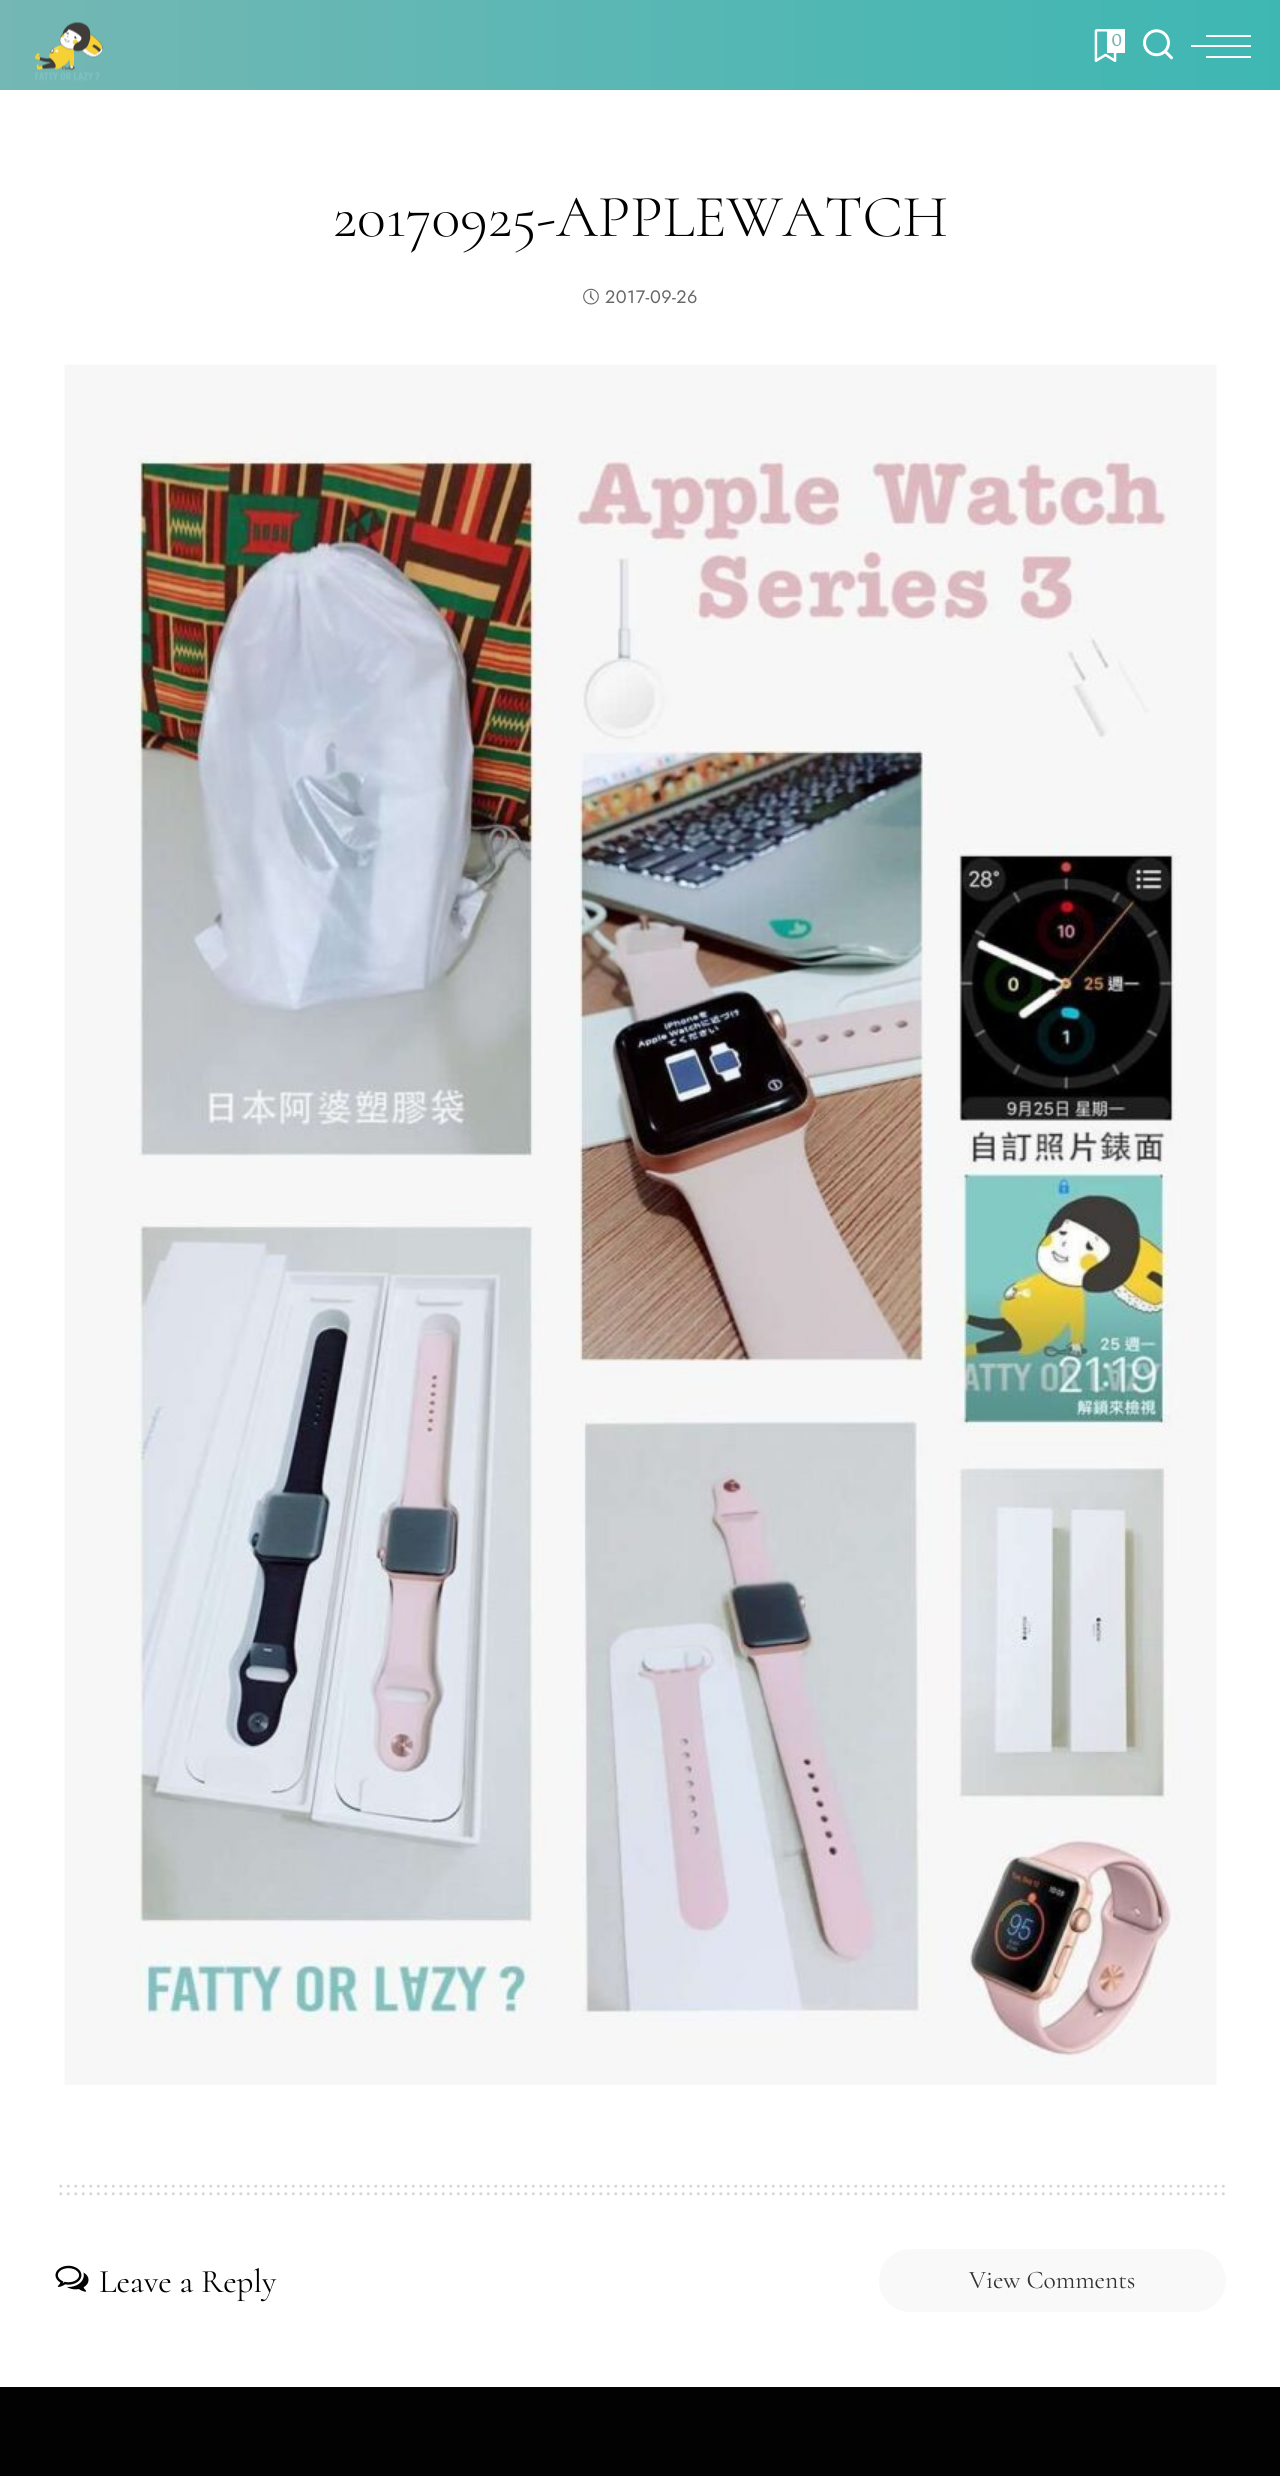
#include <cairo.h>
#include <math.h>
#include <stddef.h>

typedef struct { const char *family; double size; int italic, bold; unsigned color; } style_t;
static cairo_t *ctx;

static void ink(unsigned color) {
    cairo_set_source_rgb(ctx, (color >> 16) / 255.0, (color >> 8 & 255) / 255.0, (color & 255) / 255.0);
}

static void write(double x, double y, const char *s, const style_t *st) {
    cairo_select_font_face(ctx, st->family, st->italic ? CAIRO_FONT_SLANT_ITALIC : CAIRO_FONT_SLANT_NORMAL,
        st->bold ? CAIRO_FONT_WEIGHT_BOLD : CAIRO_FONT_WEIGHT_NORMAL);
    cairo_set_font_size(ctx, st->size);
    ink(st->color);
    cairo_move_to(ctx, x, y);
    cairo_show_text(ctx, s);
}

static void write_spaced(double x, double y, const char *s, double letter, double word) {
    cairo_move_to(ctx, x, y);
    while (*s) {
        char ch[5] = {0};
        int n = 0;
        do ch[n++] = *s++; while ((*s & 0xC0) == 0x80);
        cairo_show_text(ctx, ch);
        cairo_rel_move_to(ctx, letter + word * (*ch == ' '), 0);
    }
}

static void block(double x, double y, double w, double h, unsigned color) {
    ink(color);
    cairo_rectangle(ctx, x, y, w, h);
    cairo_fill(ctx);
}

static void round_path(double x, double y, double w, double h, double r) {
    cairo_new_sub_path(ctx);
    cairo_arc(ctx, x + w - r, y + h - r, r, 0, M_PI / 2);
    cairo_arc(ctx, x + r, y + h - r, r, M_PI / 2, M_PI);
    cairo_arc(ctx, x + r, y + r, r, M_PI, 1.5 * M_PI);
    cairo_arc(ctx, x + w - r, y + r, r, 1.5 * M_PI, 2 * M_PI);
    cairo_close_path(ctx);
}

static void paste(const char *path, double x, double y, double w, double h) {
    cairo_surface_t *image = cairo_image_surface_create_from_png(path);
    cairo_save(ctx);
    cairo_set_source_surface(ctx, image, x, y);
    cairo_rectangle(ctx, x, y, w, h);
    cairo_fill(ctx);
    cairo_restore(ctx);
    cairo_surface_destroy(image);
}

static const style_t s1 = {"Asul", 17, 0, 0, 0x74b7b4};
static const style_t s2 = {"Cormorant Light", 60, 0, 0, 0x000000};
static const style_t s3 = {"Cormorant", 33, 0, 0, 0x000000};
static const style_t s4 = {"Cormorant", 25.5, 0, 0, 0x333333};

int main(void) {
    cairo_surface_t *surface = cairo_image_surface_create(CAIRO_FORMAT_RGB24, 1280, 2476);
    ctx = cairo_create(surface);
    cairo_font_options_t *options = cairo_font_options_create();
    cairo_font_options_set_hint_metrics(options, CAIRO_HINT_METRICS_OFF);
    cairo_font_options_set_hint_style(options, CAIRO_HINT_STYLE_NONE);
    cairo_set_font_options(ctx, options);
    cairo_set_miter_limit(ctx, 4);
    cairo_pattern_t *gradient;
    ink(0xffffff);
    cairo_paint(ctx);
    gradient = cairo_pattern_create_linear(0, 45, 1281, 45);
    cairo_pattern_add_color_stop_rgba(gradient, 0, 0.455, 0.718, 0.706, 1);
    cairo_pattern_add_color_stop_rgba(gradient, 1, 0.243, 0.718, 0.702, 1);
    cairo_set_source(ctx, gradient);
    cairo_pattern_destroy(gradient);
    cairo_rectangle(ctx, 0, 0, 1280, 90);
    cairo_fill(ctx);
    paste("pic1.png", 35, 22, 68, 59);
    paste("pic2.png", 1094, 29, 23, 34);
    block(1107, 29, 18, 24, 0xffffff);
    write(1111, 46, "0", &s1);
    paste("pic3.png", 1143, 29, 30, 31);
    block(1191, 45, 60, 2, 0xffffff);
    block(1206, 35, 45, 2, 0xffffff);
    block(1206, 56, 45, 2, 0xffffff);
    write(333, 236, "20170925-APPLEWATCH", &s2);
    paste("pic4.png", 583, 288, 16, 17);
    cairo_select_font_face(ctx, "Jost", CAIRO_FONT_SLANT_NORMAL, CAIRO_FONT_WEIGHT_NORMAL);
    cairo_set_font_size(ctx, 18);
    ink(0x666666);
    write_spaced(605, 303, "2017-09-26", 0.5, 0);
    paste("pic5.png", 64, 364, 1153, 1721);
    cairo_new_path(ctx);
    cairo_move_to(ctx, 60.8, 2186.2);
    cairo_line_to(ctx, 1223.6, 2186.2);
    ink(0xd6d6d6);
    cairo_set_line_width(ctx, 3);
    cairo_set_line_cap(ctx, CAIRO_LINE_CAP_ROUND);
    cairo_set_dash(ctx, (double[]){0, 7.5}, 2, 0);
    cairo_stroke(ctx);
    cairo_new_path(ctx);
    cairo_move_to(ctx, 60.8, 2193.8);
    cairo_line_to(ctx, 1223.6, 2193.8);
    cairo_stroke(ctx);
    paste("pic6.png", 55, 2265, 34, 27);
    write(99, 2292, "Leave a Reply", &s3);
    ink(0xf9f9f9);
    round_path(879, 2249, 347, 63, 31.5);
    cairo_fill(ctx);
    write(969, 2288, "View Comments", &s4);
    block(0, 2387, 1280, 89, 0x020202);
    cairo_surface_write_to_png(surface, "screenshot.png");
    cairo_font_options_destroy(options);
    cairo_destroy(ctx);
    cairo_surface_destroy(surface);
    return 0;
}
